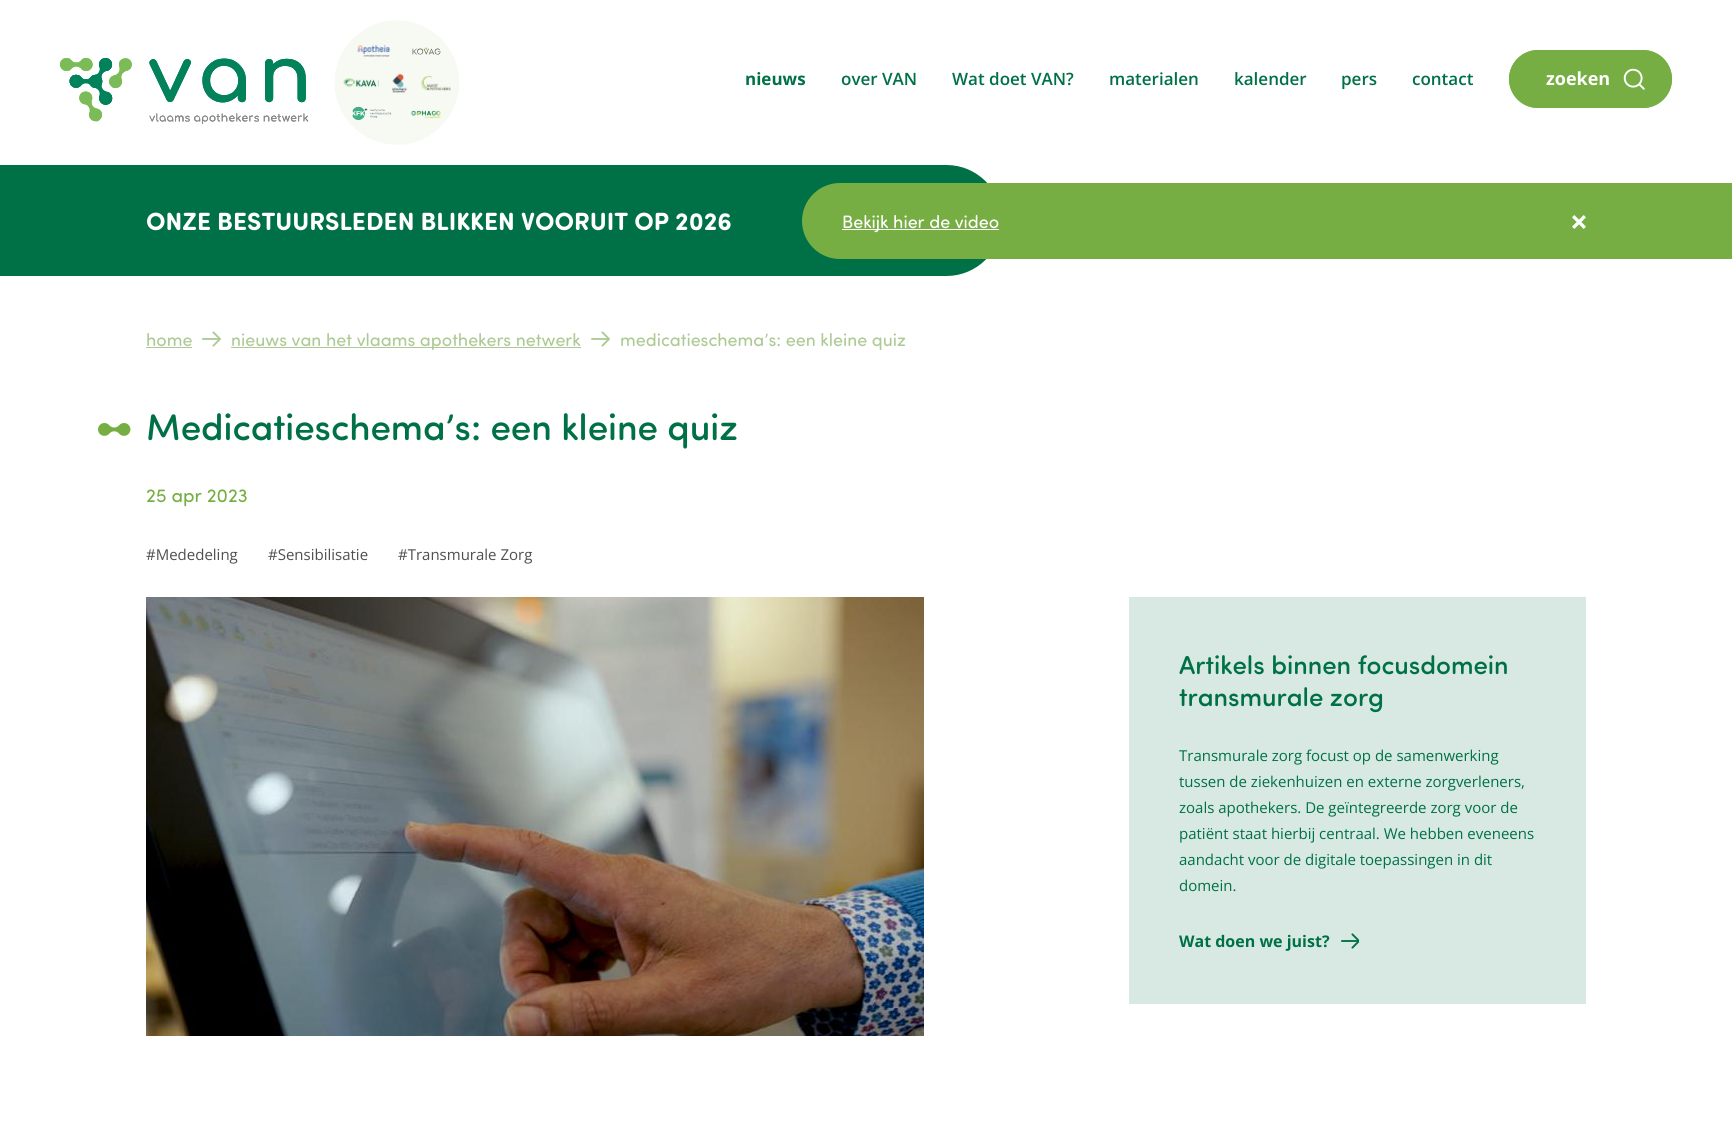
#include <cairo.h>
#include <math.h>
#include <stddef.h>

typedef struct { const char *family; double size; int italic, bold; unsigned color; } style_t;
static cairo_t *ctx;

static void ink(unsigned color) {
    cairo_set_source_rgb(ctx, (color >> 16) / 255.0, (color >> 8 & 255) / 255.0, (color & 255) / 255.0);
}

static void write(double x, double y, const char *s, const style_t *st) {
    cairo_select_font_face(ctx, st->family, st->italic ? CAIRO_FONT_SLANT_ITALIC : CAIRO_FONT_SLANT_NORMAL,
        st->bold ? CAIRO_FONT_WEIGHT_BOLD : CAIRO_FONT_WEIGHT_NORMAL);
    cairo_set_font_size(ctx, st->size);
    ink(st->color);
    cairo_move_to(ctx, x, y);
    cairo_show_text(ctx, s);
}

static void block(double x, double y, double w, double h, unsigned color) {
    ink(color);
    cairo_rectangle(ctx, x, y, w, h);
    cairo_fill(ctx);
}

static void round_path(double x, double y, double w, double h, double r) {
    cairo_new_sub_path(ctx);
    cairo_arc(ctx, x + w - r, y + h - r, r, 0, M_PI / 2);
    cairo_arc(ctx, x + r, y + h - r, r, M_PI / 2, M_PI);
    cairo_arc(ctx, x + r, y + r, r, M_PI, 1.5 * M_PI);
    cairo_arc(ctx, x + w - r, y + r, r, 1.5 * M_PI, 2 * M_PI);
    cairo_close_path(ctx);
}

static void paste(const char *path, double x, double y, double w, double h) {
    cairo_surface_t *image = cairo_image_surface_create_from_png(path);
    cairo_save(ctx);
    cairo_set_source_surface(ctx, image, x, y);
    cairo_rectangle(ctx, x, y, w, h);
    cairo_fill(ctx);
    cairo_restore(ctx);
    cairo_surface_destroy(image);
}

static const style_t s1 = {"Open Sans", 17, 0, 1, 0x007146};
static const style_t s2 = {"Open Sans SemiBold", 17, 0, 0, 0x007146};
static const style_t s3 = {"Open Sans", 18, 0, 1, 0xffffff};
static const style_t s4 = {"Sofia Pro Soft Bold", 25, 0, 1, 0xffffff};
static const style_t s5 = {"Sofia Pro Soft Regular", 18, 0, 0, 0xffffff};
static const style_t s6 = {"Sofia Pro Soft Regular", 18, 0, 0, 0xaeca94};
static const style_t s7 = {"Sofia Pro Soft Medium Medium", 37, 0, 0, 0x007146};
static const style_t s8 = {"Sofia Pro Soft Regular", 19, 0, 0, 0x76ae43};
static const style_t s9 = {"Open Sans", 15, 0, 0, 0x4f4f4f};
static const style_t s10 = {"Sofia Pro Soft Medium Medium", 26, 0, 0, 0x007146};
static const style_t s11 = {"Open Sans", 15, 0, 0, 0x007146};
static const style_t s12 = {"Open Sans", 16, 0, 1, 0x007146};

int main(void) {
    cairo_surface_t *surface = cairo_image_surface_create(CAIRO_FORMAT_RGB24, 1732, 1139);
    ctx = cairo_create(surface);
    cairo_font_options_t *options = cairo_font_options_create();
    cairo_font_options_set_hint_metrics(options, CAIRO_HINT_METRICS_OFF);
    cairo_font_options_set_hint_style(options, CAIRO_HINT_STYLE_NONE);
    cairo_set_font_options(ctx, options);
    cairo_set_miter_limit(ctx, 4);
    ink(0xffffff);
    cairo_paint(ctx);
    paste("pic1.png", 60, 20, 399, 125);
    write(745, 85, "nieuws", &s1);
    write(841, 85, "over VAN", &s2);
    write(952, 85, "Wat doet VAN?", &s2);
    write(1109, 85, "materialen", &s2);
    write(1234, 85, "kalender", &s2);
    write(1341, 85, "pers", &s2);
    write(1412, 85, "contact", &s2);
    ink(0x76ae43);
    round_path(1509, 50, 163, 58, 29);
    cairo_fill(ctx);
    paste("pic2.png", 1623, 68, 22, 22);
    round_path(1510, 51, 161, 56, 28);
    cairo_stroke(ctx);
    write(1546, 85, "zoeken", &s3);
    ink(0x007146);
    cairo_new_path(ctx);
    cairo_move_to(ctx, -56, 165);
    cairo_line_to(ctx, 946.5, 165);
    cairo_curve_to(ctx, 977, 165, 1002, 190, 1002, 220.5);
    cairo_curve_to(ctx, 1002, 251, 977, 276, 946.5, 276);
    cairo_line_to(ctx, -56, 276);
    cairo_close_path(ctx);
    cairo_fill(ctx);
    write(146, 230, "ONZE BESTUURSLEDEN BLIKKEN VOORUIT OP 2026", &s4);
    ink(0x76ae43);
    cairo_new_path(ctx);
    cairo_move_to(ctx, 840, 183);
    cairo_line_to(ctx, 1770, 183);
    cairo_line_to(ctx, 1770, 259);
    cairo_line_to(ctx, 840, 259);
    cairo_curve_to(ctx, 819, 259, 802, 242, 802, 221);
    cairo_curve_to(ctx, 802, 200, 819, 183, 840, 183);
    cairo_close_path(ctx);
    cairo_fill(ctx);
    block(842, 229, 157, 1, 0xffffff);
    write(842, 228, "Bekijk hier de video", &s5);
    paste("pic3.png", 1572, 215, 14, 14);
    write(146, 346, "home", &s6);
    block(146, 347, 46, 1, 0xaeca94);
    paste("pic4.png", 202, 331, 19, 16);
    block(231, 347, 350, 1, 0xaeca94);
    write(231, 346, "nieuws van het vlaams apothekers netwerk", &s6);
    paste("pic4.png", 591, 331, 19, 16);
    write(620, 346, "medicatieschema’s: een kleine quiz", &s6);
    paste("pic5.png", 98, 423, 33, 13);
    write(146, 440, "Medicatieschema’s: een kleine quiz", &s7);
    write(146, 502, "25 apr 2023", &s8);
    write(146, 560, "#Mededeling", &s9);
    write(268, 560, "#Sensibilisatie", &s9);
    write(398, 560, "#Transmurale Zorg", &s9);
    paste("pic6.png", 146, 597, 778, 439);
    block(1129, 597, 457, 407, 0xd7e9e2);
    write(1179, 674, "Artikels binnen focusdomein", &s10);
    write(1179, 706, "transmurale zorg", &s10);
    write(1179, 761, "Transmurale zorg focust op de samenwerking", &s11);
    write(1179, 787, "tussen de ziekenhuizen en externe zorgverleners,", &s11);
    write(1179, 813, "zoals apothekers. De geïntegreerde zorg voor de", &s11);
    write(1179, 839, "patiënt staat hierbij centraal. We hebben eveneens", &s11);
    write(1179, 865, "aandacht voor de digitale toepassingen in dit", &s11);
    write(1179, 891, "domein.", &s11);
    write(1179, 947, "Wat doen we juist?", &s12);
    paste("pic7.png", 1341, 933, 18, 16);
    cairo_surface_write_to_png(surface, "screenshot.png");
    cairo_font_options_destroy(options);
    cairo_destroy(ctx);
    cairo_surface_destroy(surface);
    return 0;
}
